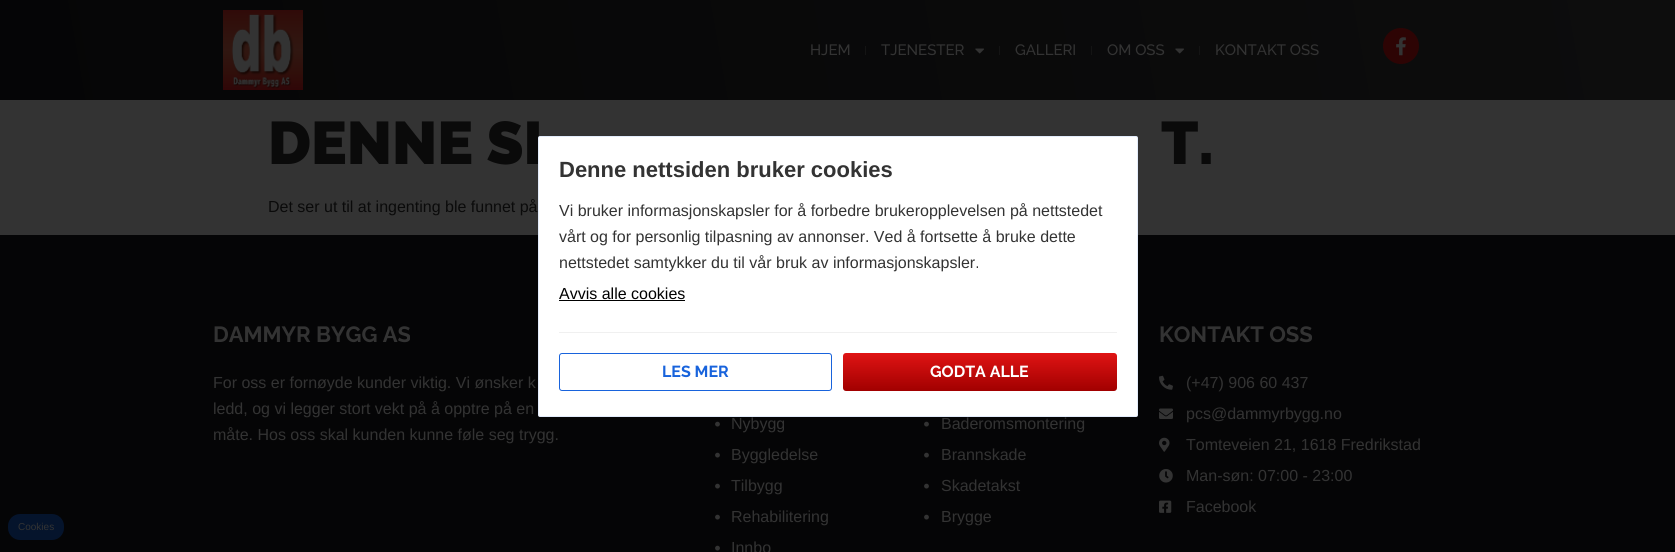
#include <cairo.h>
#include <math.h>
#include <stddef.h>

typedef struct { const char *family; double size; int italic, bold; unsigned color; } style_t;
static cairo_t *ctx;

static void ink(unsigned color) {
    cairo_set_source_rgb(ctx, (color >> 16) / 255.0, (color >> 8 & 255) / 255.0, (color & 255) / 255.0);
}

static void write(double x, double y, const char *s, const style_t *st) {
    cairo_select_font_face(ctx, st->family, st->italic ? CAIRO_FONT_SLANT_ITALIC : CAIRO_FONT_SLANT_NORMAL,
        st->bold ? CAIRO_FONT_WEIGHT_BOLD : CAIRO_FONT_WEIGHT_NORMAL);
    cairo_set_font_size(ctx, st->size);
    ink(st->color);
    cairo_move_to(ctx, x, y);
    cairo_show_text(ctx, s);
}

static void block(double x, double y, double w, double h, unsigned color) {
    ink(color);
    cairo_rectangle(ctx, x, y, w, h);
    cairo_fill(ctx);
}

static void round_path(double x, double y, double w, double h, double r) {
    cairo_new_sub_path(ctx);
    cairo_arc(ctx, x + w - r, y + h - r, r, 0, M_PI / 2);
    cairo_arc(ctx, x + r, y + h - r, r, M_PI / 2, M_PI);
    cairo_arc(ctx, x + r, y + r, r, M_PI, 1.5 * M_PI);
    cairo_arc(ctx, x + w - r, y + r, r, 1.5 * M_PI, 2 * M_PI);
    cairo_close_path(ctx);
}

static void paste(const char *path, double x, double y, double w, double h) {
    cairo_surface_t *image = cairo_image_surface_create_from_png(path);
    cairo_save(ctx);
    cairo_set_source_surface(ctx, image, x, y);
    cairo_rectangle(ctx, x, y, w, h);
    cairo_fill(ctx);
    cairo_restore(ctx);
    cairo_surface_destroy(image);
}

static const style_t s1 = {"Raleway Medium", 15, 0, 0, 0x333333};
static const style_t s2 = {"Raleway Black", 60, 0, 0, 0x0a0a0a};
static const style_t s3 = {"Liberation Sans", 16, 0, 0, 0x0a0a0a};
static const style_t s4 = {"Liberation Sans", 22, 0, 1, 0x333333};
static const style_t s5 = {"Liberation Sans", 16, 0, 0, 0x333333};
static const style_t s6 = {"Liberation Sans", 16, 0, 0, 0x000000};
static const style_t s7 = {"Raleway", 16, 0, 1, 0x1863dc};
static const style_t s8 = {"Raleway", 16, 0, 1, 0xffffff};
static const style_t s9 = {"Liberation Sans", 10, 0, 0, 0x333333};
static const style_t s10 = {"Raleway", 22, 0, 1, 0x333333};

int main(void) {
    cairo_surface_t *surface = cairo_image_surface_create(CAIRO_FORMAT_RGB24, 1675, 552);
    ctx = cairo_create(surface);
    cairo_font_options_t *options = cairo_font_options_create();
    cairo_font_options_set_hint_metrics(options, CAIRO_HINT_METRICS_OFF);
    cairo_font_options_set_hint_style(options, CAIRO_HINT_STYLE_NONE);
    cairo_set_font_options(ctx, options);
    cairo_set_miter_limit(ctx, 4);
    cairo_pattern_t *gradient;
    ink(0x333333);
    cairo_paint(ctx);
    gradient = cairo_pattern_create_linear(17, 195, 1658, -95);
    cairo_pattern_add_color_stop_rgba(gradient, 0, 0.02, 0.02, 0.024, 1);
    cairo_pattern_add_color_stop_rgba(gradient, 1, 0.051, 0.051, 0.051, 1);
    cairo_set_source(ctx, gradient);
    cairo_pattern_destroy(gradient);
    cairo_rectangle(ctx, 0, 0, 1675, 100);
    cairo_fill(ctx);
    paste("pic1.png", 223, 10, 80, 80);
    write(810, 55, "HJEM", &s1);
    block(865, 46, 1, 9, 0x141414);
    write(881, 55, "TJENESTER", &s1);
    paste("pic2.png", 975, 48, 9, 6);
    block(999, 46, 1, 9, 0x141414);
    write(1015, 55, "GALLERI", &s1);
    block(1091, 46, 1, 9, 0x141414);
    write(1107, 55, "OM OSS", &s1);
    paste("pic3.png", 1175, 48, 9, 6);
    block(1199, 46, 1, 9, 0x141414);
    write(1215, 55, "KONTAKT OSS", &s1);
    ink(0x2d0404);
    cairo_new_path(ctx);
    cairo_arc(ctx, 1401, 46, 18, 0, 2 * M_PI);
    cairo_fill(ctx);
    paste("pic4.png", 1396, 37, 10, 19);
    write(268, 164, "DENNE SI", &s2);
    write(1161, 164, "T.", &s2);
    write(268, 212, "Det ser ut til at ingenting ble funnet på", &s3);
    block(0, 235, 1675, 317, 0x050506);
    ink(0xffffff);
    round_path(538, 136, 600, 281, 2);
    cairo_fill(ctx);
    round_path(538.5, 136.5, 599, 280, 1.5);
    cairo_set_source_rgba(ctx, 0.094, 0.388, 0.863, 0.12);
    cairo_set_line_width(ctx, 1);
    cairo_stroke(ctx);
    write(559, 177, "Denne nettsiden bruker cookies", &s4);
    write(559, 216, "Vi bruker informasjonskapsler for å forbedre brukeropplevelsen på nettstedet", &s5);
    write(559, 242, "vårt og for personlig tilpasning av annonser. Ved å fortsette å bruke dette", &s5);
    write(559, 268, "nettstedet samtykker du til vår bruk av informasjonskapsler.", &s5);
    write(559, 299, "Avvis alle cookies", &s6);
    block(559, 300, 126, 1, 0x000000);
    block(559, 332, 558, 1, 0xf0f0f0);
    round_path(559.5, 353.5, 272, 37, 2.5);
    ink(0x1863dc);
    cairo_stroke(ctx);
    write(662, 377, "LES MER", &s7);
    gradient = cairo_pattern_create_linear(980, 353, 980, 391);
    cairo_pattern_add_color_stop_rgba(gradient, 0, 0.878, 0.078, 0.078, 1);
    cairo_pattern_add_color_stop_rgba(gradient, 1, 0.631, 0, 0, 1);
    cairo_set_source(ctx, gradient);
    cairo_pattern_destroy(gradient);
    round_path(843, 353, 274, 38, 3);
    cairo_fill(ctx);
    write(930, 377, "GODTA ALLE", &s8);
    ink(0x05142c);
    round_path(8, 514, 56, 26, 12);
    cairo_fill(ctx);
    write(18, 530, "Cookies", &s9);
    write(213, 342, "DAMMYR BYGG AS", &s10);
    write(213, 388, "For oss er fornøyde kunder viktig. Vi ønsker k", &s5);
    write(213, 414, "ledd, og vi legger stort vekt på å opptre på en", &s5);
    write(213, 440, "måte. Hos oss skal kunden kunne føle seg trygg.", &s5);
    paste("pic5.png", 715, 421, 5, 6);
    write(731, 429, "Nybygg", &s5);
    paste("pic5.png", 715, 452, 5, 6);
    write(731, 460, "Byggledelse", &s5);
    paste("pic5.png", 715, 483, 5, 6);
    write(731, 491, "Tilbygg", &s5);
    paste("pic5.png", 715, 514, 5, 6);
    write(731, 522, "Rehabilitering", &s5);
    paste("pic5.png", 715, 545, 5, 6);
    write(731, 553, "Innbo", &s5);
    paste("pic5.png", 924, 421, 5, 6);
    write(941, 429, "Baderomsmontering", &s5);
    paste("pic5.png", 924, 452, 5, 6);
    write(941, 460, "Brannskade", &s5);
    paste("pic5.png", 924, 483, 5, 6);
    write(941, 491, "Skadetakst", &s5);
    paste("pic5.png", 924, 514, 5, 6);
    write(941, 522, "Brygge", &s5);
    write(1159, 342, "KONTAKT OSS", &s10);
    paste("pic6.png", 1159, 375, 14, 15);
    write(1186, 388, "(+47) 906 60 437", &s5);
    paste("pic7.png", 1159, 408, 14, 11);
    write(1186, 419, "pcs@dammyrbygg.no", &s5);
    paste("pic8.png", 1159, 437, 11, 15);
    write(1186, 450, "Tomteveien 21, 1618 Fredrikstad", &s5);
    paste("pic9.png", 1159, 469, 14, 14);
    write(1186, 481, "Man-søn: 07:00 - 23:00", &s5);
    paste("pic10.png", 1159, 500, 13, 13);
    write(1186, 512, "Facebook", &s5);
    cairo_surface_write_to_png(surface, "screenshot.png");
    cairo_font_options_destroy(options);
    cairo_destroy(ctx);
    cairo_surface_destroy(surface);
    return 0;
}
